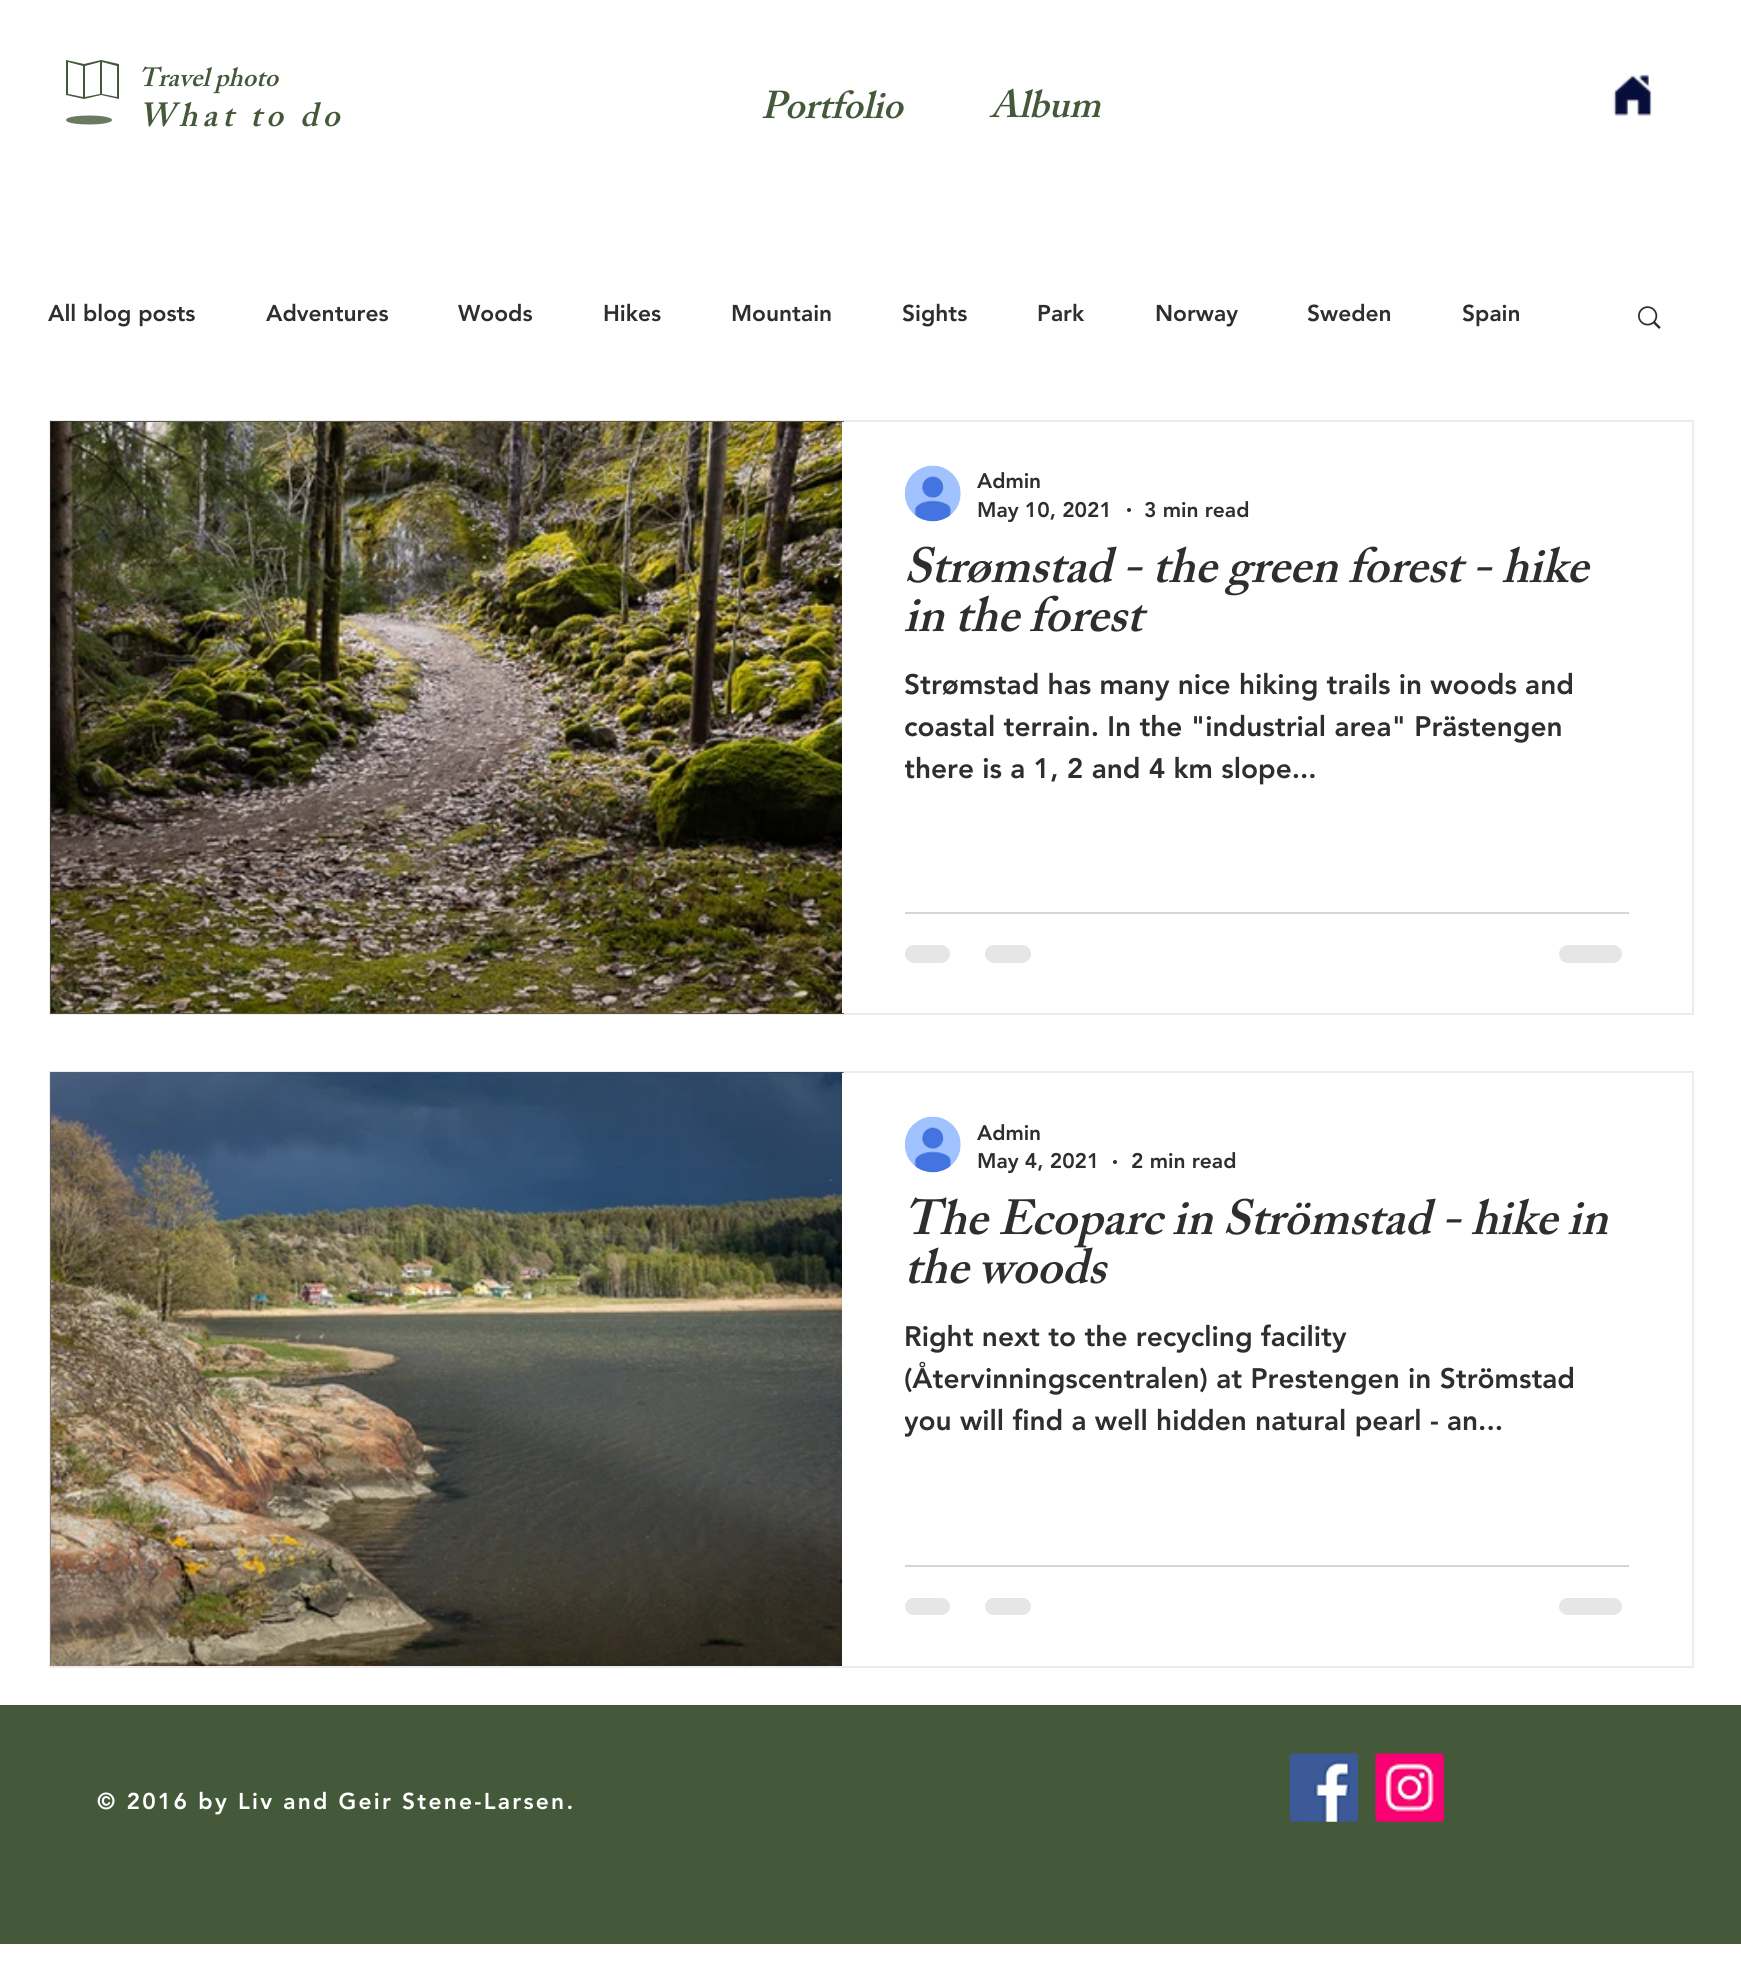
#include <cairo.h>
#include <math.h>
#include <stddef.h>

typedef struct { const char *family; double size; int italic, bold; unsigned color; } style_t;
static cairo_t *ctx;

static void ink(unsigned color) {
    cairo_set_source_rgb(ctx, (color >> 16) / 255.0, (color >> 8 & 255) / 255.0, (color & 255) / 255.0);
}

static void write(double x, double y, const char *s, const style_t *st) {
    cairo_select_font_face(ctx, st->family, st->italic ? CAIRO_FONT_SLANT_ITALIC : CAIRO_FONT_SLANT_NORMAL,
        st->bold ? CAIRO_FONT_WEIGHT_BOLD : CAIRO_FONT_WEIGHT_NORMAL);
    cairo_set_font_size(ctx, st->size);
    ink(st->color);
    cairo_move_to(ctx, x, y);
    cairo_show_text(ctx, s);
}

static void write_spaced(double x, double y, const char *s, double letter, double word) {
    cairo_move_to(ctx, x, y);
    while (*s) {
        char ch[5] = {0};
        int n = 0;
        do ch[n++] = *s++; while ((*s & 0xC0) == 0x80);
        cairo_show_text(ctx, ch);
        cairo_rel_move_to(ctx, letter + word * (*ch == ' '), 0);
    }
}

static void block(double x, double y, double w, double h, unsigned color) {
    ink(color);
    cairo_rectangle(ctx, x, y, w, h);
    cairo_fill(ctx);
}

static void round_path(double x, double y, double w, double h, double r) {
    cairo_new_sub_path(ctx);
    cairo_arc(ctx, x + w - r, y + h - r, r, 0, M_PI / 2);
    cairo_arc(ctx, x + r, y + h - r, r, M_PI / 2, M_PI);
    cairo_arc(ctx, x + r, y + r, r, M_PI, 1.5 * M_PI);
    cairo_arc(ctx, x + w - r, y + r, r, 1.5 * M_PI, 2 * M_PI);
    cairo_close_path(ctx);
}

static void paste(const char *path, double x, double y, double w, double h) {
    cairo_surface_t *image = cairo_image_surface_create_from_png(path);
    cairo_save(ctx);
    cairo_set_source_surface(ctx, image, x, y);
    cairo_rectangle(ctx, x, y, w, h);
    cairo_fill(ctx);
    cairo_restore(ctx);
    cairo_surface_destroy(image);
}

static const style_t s1 = {"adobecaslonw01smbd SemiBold", 26.25, 1, 0, 0x44593a};
static const style_t s2 = {"adobecaslonw01smbd SemiBold", 38.5, 1, 0, 0x44593a};
static const style_t s3 = {"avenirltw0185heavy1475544 Black", 22.75, 0, 0, 0x2f2e2e};
static const style_t s4 = {"avenirltw0185heavy1475544 Black", 21, 0, 0, 0x2f2e2e};
static const style_t s5 = {"adobecaslonw01smbd SemiBold", 49, 1, 0, 0x2f2e2e};
static const style_t s6 = {"avenirltw0185heavy1475544 Black", 28, 0, 0, 0x2f2e2e};

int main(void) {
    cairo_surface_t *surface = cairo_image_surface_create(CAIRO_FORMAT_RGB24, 1741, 1977);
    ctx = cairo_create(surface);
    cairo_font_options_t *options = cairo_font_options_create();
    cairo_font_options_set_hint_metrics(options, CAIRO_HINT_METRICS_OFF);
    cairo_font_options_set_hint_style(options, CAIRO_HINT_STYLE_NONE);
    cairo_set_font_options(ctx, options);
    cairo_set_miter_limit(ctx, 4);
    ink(0xffffff);
    cairo_paint(ctx);
    ink(0x44593a);
    cairo_new_path(ctx);
    cairo_move_to(ctx, 119, 99);
    cairo_line_to(ctx, 119, 64);
    cairo_line_to(ctx, 101, 60);
    cairo_line_to(ctx, 84, 64);
    cairo_line_to(ctx, 66, 60);
    cairo_line_to(ctx, 66, 95);
    cairo_line_to(ctx, 84, 99);
    cairo_line_to(ctx, 101, 95);
    cairo_close_path(ctx);
    cairo_move_to(ctx, 102, 62);
    cairo_line_to(ctx, 117, 66);
    cairo_line_to(ctx, 117, 97);
    cairo_line_to(ctx, 102, 94);
    cairo_close_path(ctx);
    cairo_move_to(ctx, 83, 97);
    cairo_line_to(ctx, 68, 94);
    cairo_line_to(ctx, 68, 62);
    cairo_line_to(ctx, 83, 66);
    cairo_close_path(ctx);
    cairo_move_to(ctx, 100, 94);
    cairo_line_to(ctx, 85, 97);
    cairo_line_to(ctx, 85, 66);
    cairo_line_to(ctx, 100, 62);
    cairo_close_path(ctx);
    cairo_fill(ctx);
    ink(0x697a61);
    cairo_new_path(ctx);
    cairo_move_to(ctx, 112, 120);
    cairo_curve_to(ctx, 112, 126, 66, 126, 66, 120);
    cairo_curve_to(ctx, 66, 114, 112, 114, 112, 120);
    cairo_close_path(ctx);
    cairo_fill(ctx);
    write(139, 86, "Travel photo", &s1);
    cairo_set_font_size(ctx, 33.25);
    write_spaced(139, 126, "What to do", 5, 0);
    write(761, 118, "Portfolio", &s2);
    write(990, 117, "Album", &s2);
    paste("pic1.png", 1613, 74, 39, 42);
    write(48, 321, "All blog posts", &s3);
    write(266, 321, "Adventures", &s3);
    write(458, 321, "Woods", &s3);
    write(603, 321, "Hikes", &s3);
    write(731, 321, "Mountain", &s3);
    write(902, 321, "Sights", &s3);
    write(1037, 321, "Park", &s3);
    write(1155, 321, "Norway", &s3);
    write(1307, 321, "Sweden", &s3);
    write(1462, 321, "Spain", &s3);
    paste("pic2.png", 1638, 306, 23, 23);
    cairo_rectangle(ctx, 50, 421, 1643, 593);
    ink(0xebebf0);
    cairo_stroke(ctx);
    paste("pic3.png", 50, 421, 794, 593);
    paste("pic4.png", 51, 422, 791, 591);
    block(842, 422, 2, 591, 0xffffff);
    paste("pic5.png", 904, 465, 57, 57);
    write(977, 488, "Admin", &s4);
    write(977, 517, "May 10, 2021", &s4);
    cairo_new_path(ctx);
    cairo_arc(ctx, 1129, 510, 2, 0, 2 * M_PI);
    cairo_fill(ctx);
    write(1144, 517, "3 min read", &s4);
    write(904, 582, "Strømstad - the green forest - hike", &s5);
    write(904, 631, "in the forest", &s5);
    write(904, 694, "Strømstad has many nice hiking trails in woods and", &s6);
    write(904, 736, "coastal terrain. In the \"industrial area\" Prästengen", &s6);
    cairo_save(ctx);
    cairo_rectangle(ctx, 905, 665, 724, 126);
    cairo_clip(ctx);
    write(904, 778, "there is a 1, 2 and 4 km slope...", &s6);
    cairo_restore(ctx);
    block(905, 912, 724, 2, 0xd5d5d5);
    ink(0xe6e6e6);
    round_path(905, 945, 45, 18, 9);
    cairo_fill(ctx);
    round_path(985, 945, 46, 18, 9);
    cairo_fill(ctx);
    round_path(1559, 945, 63, 18, 9);
    cairo_fill(ctx);
    cairo_rectangle(ctx, 50, 1072, 1643, 595);
    ink(0xebebf0);
    cairo_stroke(ctx);
    paste("pic6.png", 50, 1072, 794, 594);
    paste("pic7.png", 51, 1073, 791, 593);
    block(842, 1073, 2, 593, 0xffffff);
    paste("pic5.png", 904, 1116, 57, 57);
    write(977, 1140, "Admin", &s4);
    write(977, 1168, "May 4, 2021", &s4);
    cairo_new_path(ctx);
    cairo_arc(ctx, 1115, 1162, 2, 0, 2 * M_PI);
    cairo_fill(ctx);
    write(1131, 1168, "2 min read", &s4);
    write(904, 1234, "The Ecoparc in Strömstad - hike in", &s5);
    write(904, 1283, "the woods", &s5);
    write(904, 1346, "Right next to the recycling facility", &s6);
    write(904, 1388, "(Återvinningscentralen) at Prestengen in Strömstad", &s6);
    cairo_save(ctx);
    cairo_rectangle(ctx, 905, 1316, 724, 126);
    cairo_clip(ctx);
    write(904, 1430, "you will find a well hidden natural pearl - an...", &s6);
    cairo_restore(ctx);
    block(905, 1565, 724, 2, 0xd5d5d5);
    ink(0xe6e6e6);
    round_path(905, 1598, 45, 17, 8.5);
    cairo_fill(ctx);
    round_path(985, 1598, 46, 17, 8.5);
    cairo_fill(ctx);
    round_path(1559, 1598, 63, 17, 8.5);
    cairo_fill(ctx);
    block(0, 1705, 1741, 239, 0x44593a);
    cairo_set_font_size(ctx, 22.75);
    ink(0xffffff);
    write_spaced(97, 1809, "© 2016 by Liv and Geir Stene-Larsen.", 2.25, 0);
    paste("pic8.png", 1289, 1753, 69, 69);
    paste("pic9.png", 1375, 1753, 69, 69);
    cairo_surface_write_to_png(surface, "screenshot.png");
    cairo_font_options_destroy(options);
    cairo_destroy(ctx);
    cairo_surface_destroy(surface);
    return 0;
}
